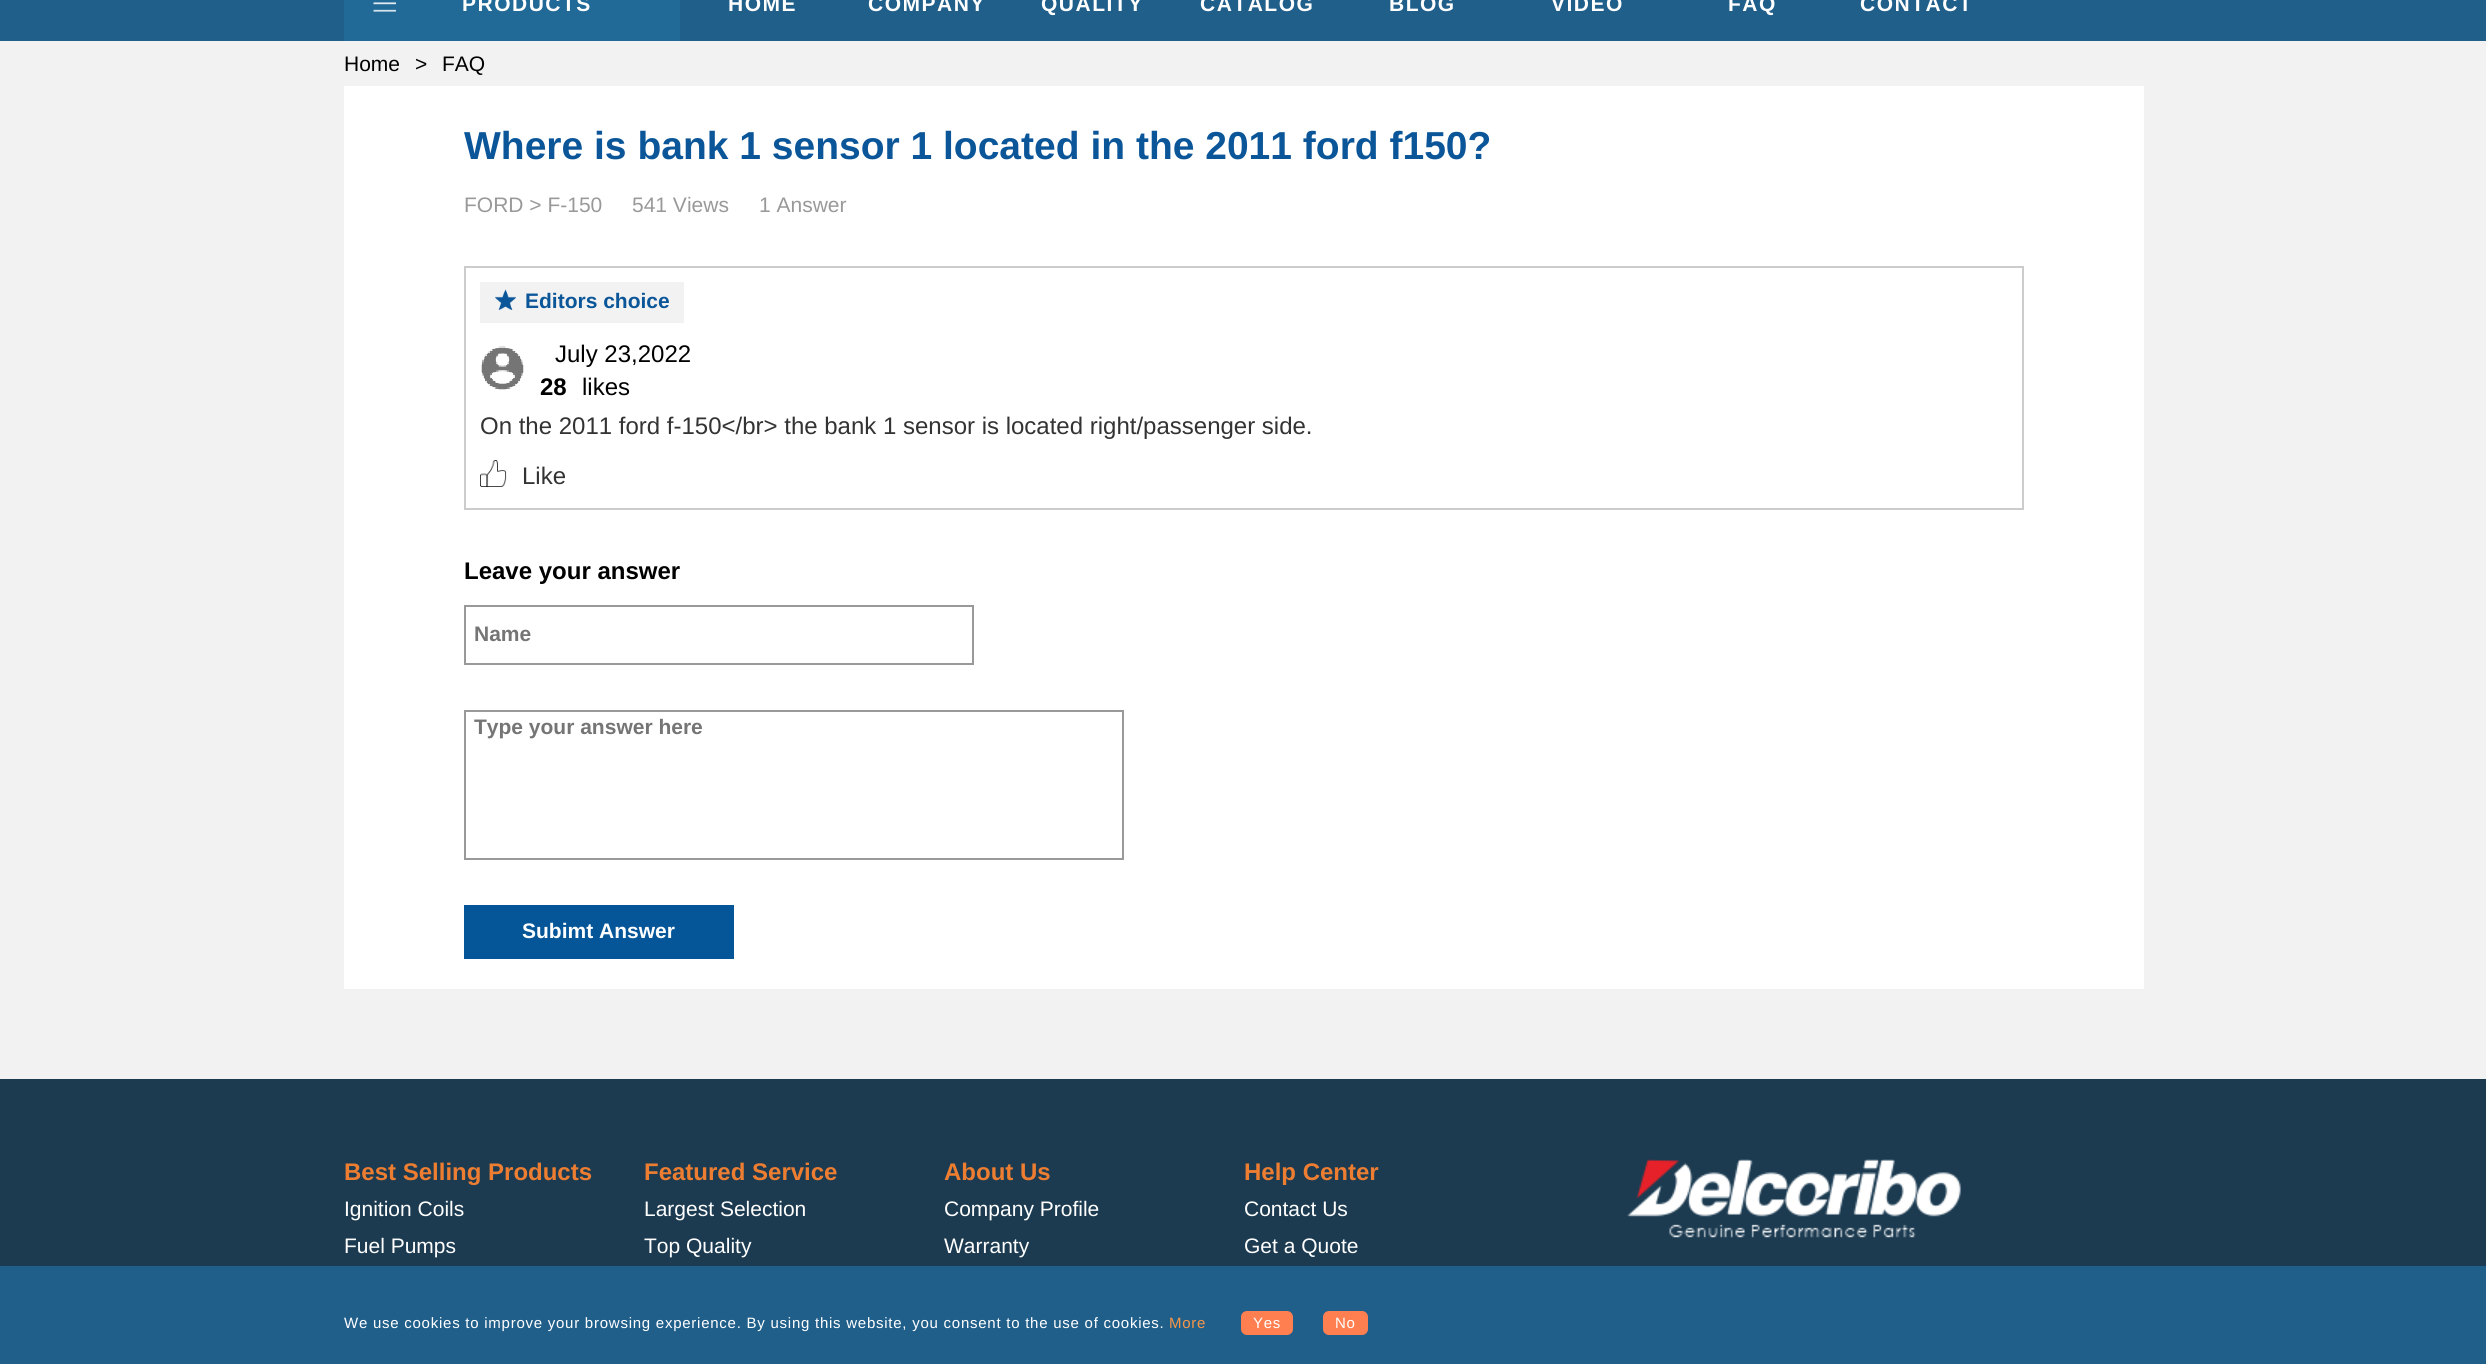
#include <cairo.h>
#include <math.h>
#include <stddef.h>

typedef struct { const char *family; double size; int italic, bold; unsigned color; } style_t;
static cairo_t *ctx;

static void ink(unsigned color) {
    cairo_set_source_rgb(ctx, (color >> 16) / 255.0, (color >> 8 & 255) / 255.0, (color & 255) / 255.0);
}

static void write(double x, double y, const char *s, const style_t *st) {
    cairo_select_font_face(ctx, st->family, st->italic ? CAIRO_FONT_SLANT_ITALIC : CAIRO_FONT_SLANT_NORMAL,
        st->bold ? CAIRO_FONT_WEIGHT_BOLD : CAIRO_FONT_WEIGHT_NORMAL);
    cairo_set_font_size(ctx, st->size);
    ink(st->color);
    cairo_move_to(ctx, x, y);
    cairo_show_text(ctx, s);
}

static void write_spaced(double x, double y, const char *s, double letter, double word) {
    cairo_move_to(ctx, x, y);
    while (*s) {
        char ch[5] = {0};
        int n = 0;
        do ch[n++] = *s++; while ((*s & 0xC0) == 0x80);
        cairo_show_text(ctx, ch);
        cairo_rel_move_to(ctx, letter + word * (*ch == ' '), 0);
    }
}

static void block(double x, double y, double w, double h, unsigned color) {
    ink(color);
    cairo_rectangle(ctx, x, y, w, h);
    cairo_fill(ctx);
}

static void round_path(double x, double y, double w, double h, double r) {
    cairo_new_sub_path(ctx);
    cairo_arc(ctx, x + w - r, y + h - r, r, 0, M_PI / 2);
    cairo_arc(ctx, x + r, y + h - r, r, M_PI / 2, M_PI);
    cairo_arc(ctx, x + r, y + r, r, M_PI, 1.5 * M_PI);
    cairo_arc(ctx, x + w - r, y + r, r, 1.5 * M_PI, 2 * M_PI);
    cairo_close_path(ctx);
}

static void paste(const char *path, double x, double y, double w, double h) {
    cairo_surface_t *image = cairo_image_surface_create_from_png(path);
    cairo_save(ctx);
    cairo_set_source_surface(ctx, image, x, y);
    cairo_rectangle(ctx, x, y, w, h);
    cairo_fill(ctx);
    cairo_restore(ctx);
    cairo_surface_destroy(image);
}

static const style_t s1 = {"Liberation Sans", 21, 0, 0, 0x000000};
static const style_t s2 = {"Liberation Sans", 39, 0, 1, 0x0b5699};
static const style_t s3 = {"Liberation Sans", 21, 0, 0, 0x999999};
static const style_t s4 = {"Liberation Sans", 21, 0, 1, 0x0b5699};
static const style_t s5 = {"Liberation Sans", 24, 0, 0, 0x000000};
static const style_t s6 = {"Liberation Sans", 24, 0, 1, 0x000000};
static const style_t s7 = {"Liberation Sans", 24, 0, 0, 0x333333};
static const style_t s8 = {"Liberation Sans", 21, 0, 1, 0x757575};
static const style_t s9 = {"Liberation Sans", 21, 0, 1, 0xffffff};
static const style_t s10 = {"Liberation Sans", 24, 0, 1, 0xed7d31};
static const style_t s11 = {"Liberation Sans", 21, 0, 0, 0xffffff};

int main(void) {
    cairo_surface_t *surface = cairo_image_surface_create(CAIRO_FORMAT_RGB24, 2486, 1364);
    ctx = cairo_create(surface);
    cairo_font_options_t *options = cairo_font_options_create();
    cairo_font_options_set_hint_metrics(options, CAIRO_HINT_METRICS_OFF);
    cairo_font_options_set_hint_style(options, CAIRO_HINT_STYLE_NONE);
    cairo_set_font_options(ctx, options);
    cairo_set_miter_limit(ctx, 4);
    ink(0xf2f2f2);
    cairo_paint(ctx);
    block(0, 0, 2486, 41, 0x215f8b);
    block(344, 0, 336, 41, 0x216996);
    paste("pic1.png", 373, 2, 23, 10);
    cairo_select_font_face(ctx, "Liberation Sans", CAIRO_FONT_SLANT_NORMAL, CAIRO_FONT_WEIGHT_BOLD);
    cairo_set_font_size(ctx, 21);
    ink(0xffffff);
    write_spaced(462, 11, "PRODUCTS", 1.5, 0);
    write_spaced(728, 11, "HOME", 1.5, 0);
    write_spaced(868, 11, "COMPANY", 1.5, 0);
    write_spaced(1041, 11, "QUALITY", 1.5, 0);
    write_spaced(1200, 11, "CATALOG", 1.5, 0);
    write_spaced(1389, 11, "BLOG", 1.5, 0);
    write_spaced(1551, 11, "VIDEO", 1.5, 0);
    write_spaced(1728, 11, "FAQ", 1.5, 0);
    write_spaced(1860, 11, "CONTACT", 1.5, 0);
    write(344, 71, "Home", &s1);
    write(415, 71, ">", &s1);
    write(442, 71, "FAQ", &s1);
    block(344, 86, 1800, 903, 0xffffff);
    write(464, 159, "Where is bank 1 sensor 1 located in the 2011 ford f150?", &s2);
    write(464, 212, "FORD > F-150", &s3);
    write(632, 212, "541 Views", &s3);
    write(759, 212, "1 Answer", &s3);
    cairo_rectangle(ctx, 465, 267, 1558, 242);
    ink(0xcccccc);
    cairo_stroke(ctx);
    block(480, 282, 204, 41, 0xf2f2f2);
    paste("pic2.png", 495, 289, 21, 21);
    write(525, 308, "Editors choice", &s4);
    paste("pic3.png", 481, 346, 43, 44);
    write(555, 362, "July 23,2022", &s5);
    write(540, 395, "28", &s6);
    write(582, 395, "likes", &s5);
    write(480, 434, "On the 2011 ford f-150</br> the bank 1 sensor is located right/passenger side.", &s7);
    paste("pic4.png", 480, 460, 27, 27);
    write(522, 484, "Like", &s7);
    write(464, 579, "Leave your answer", &s6);
    cairo_rectangle(ctx, 465, 606, 508, 58);
    ink(0x999999);
    cairo_stroke(ctx);
    write(474, 641, "Name", &s8);
    cairo_rectangle(ctx, 465, 711, 658, 148);
    ink(0x999999);
    cairo_stroke(ctx);
    write(474, 734, "Type your answer here", &s8);
    block(464, 905, 270, 54, 0x055699);
    write(522, 938, "Subimt Answer", &s9);
    block(0, 1079, 2486, 187, 0x1c3b51);
    write(344, 1180, "Best Selling Products", &s10);
    write(344, 1216, "Ignition Coils", &s11);
    write(344, 1253, "Fuel Pumps", &s11);
    write(644, 1180, "Featured Service", &s10);
    write(644, 1216, "Largest Selection", &s11);
    write(644, 1253, "Top Quality", &s11);
    write(944, 1180, "About Us", &s10);
    write(944, 1216, "Company Profile", &s11);
    write(944, 1253, "Warranty", &s11);
    write(1244, 1180, "Help Center", &s10);
    write(1244, 1216, "Contact Us", &s11);
    write(1244, 1253, "Get a Quote", &s11);
    paste("pic5.png", 1627, 1159, 334, 79);
    block(0, 1266, 2486, 98, 0x215f8b);
    cairo_set_font_size(ctx, 15);
    ink(0xffffff);
    write_spaced(344, 1328, "We use cookies to improve your browsing experience. By using this website, you consent to the use of cookies.", 0.75, 0);
    ink(0xf79646);
    write_spaced(1169, 1328, "More", 0.75, 0);
    ink(0xff7f50);
    round_path(1241, 1311, 52, 24, 6);
    cairo_fill(ctx);
    ink(0xffffff);
    write_spaced(1253, 1328, "Yes", 0.75, 0);
    ink(0xff7f50);
    round_path(1323, 1311, 45, 24, 6);
    cairo_fill(ctx);
    ink(0xffffff);
    write_spaced(1335, 1328, "No", 0.75, 0);
    cairo_surface_write_to_png(surface, "screenshot.png");
    cairo_font_options_destroy(options);
    cairo_destroy(ctx);
    cairo_surface_destroy(surface);
    return 0;
}
